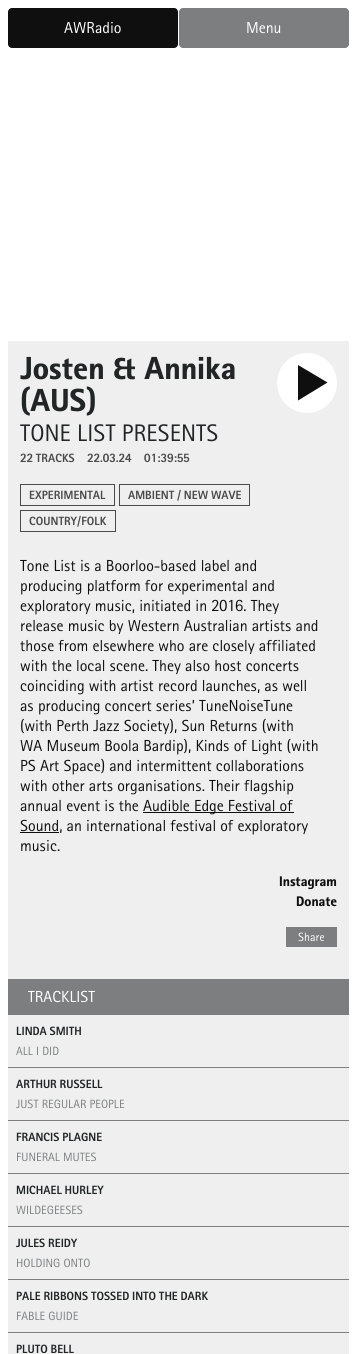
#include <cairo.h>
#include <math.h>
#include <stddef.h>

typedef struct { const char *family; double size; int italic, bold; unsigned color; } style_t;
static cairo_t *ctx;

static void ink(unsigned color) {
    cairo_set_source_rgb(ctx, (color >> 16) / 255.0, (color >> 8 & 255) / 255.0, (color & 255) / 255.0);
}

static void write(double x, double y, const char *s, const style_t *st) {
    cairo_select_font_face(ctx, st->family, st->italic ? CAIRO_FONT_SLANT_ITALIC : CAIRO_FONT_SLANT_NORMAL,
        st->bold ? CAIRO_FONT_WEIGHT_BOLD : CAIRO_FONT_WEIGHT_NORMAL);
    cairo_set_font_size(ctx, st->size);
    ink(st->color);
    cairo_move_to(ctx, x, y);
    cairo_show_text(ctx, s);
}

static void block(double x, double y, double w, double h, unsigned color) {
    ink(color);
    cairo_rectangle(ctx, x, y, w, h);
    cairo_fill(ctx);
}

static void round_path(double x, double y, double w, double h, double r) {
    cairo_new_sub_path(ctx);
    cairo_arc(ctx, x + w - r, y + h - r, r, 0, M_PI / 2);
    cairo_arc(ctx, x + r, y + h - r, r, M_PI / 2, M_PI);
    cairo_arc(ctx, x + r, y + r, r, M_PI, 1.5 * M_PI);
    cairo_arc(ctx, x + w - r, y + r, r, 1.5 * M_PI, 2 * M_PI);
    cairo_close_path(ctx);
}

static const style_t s1 = {"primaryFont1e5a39", 16, 0, 0, 0xffffff};
static const style_t s2 = {"primaryFont1e5a39 ExtraBold", 32, 0, 0, 0x212526};
static const style_t s3 = {"primaryFont1e5a39", 24, 0, 0, 0x212526};
static const style_t s4 = {"primaryFont1e5a39", 12, 0, 1, 0x4a4a4a};
static const style_t s5 = {"primaryFont1e5a39", 16, 0, 0, 0x0f0f0f};
static const style_t s6 = {"primaryFont1e5a39 ExtraBold", 14, 0, 0, 0x0f0f0f};
static const style_t s7 = {"primaryFont1e5a39", 12, 0, 0, 0xffffff};
static const style_t s8 = {"primaryFont1e5a39", 12, 0, 1, 0x212526};
static const style_t s9 = {"primaryFont1e5a39", 12, 0, 0, 0x7c7e7f};

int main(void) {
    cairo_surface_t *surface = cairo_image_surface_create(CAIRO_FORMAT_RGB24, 357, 1354);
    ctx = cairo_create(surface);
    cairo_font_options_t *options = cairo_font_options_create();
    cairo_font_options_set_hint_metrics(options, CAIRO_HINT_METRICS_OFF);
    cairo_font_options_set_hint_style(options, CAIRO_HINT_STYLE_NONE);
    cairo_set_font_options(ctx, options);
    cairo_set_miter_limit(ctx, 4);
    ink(0xffffff);
    cairo_paint(ctx);
    ink(0x0f0f0f);
    round_path(8, 8, 170, 40, 4);
    cairo_fill(ctx);
    write(64, 33, "AWRadio", &s1);
    ink(0x7c7e7f);
    round_path(179, 8, 170, 40, 4);
    cairo_fill(ctx);
    write(246, 33, "Menu", &s1);
    block(8, 341, 341, 1013, 0xefefef);
    write(20, 379, "Josten & Annika", &s2);
    write(20, 411, "(AUS)", &s2);
    write(20, 441, "TONE LIST PRESENTS", &s3);
    write(20, 462, "22 TRACKS", &s4);
    write(87, 462, "22.03.24", &s4);
    write(144, 462, "01:39:55", &s4);
    cairo_rectangle(ctx, 20.5, 484.5, 94, 21);
    cairo_set_line_width(ctx, 1);
    cairo_stroke(ctx);
    write(29, 499, "EXPERIMENTAL", &s4);
    cairo_rectangle(ctx, 119.5, 484.5, 130, 21);
    cairo_stroke(ctx);
    write(128, 499, "AMBIENT / NEW WAVE", &s4);
    cairo_rectangle(ctx, 20.5, 510.5, 95, 21);
    cairo_stroke(ctx);
    write(29, 525, "COUNTRY/FOLK", &s4);
    ink(0xffffff);
    cairo_new_path(ctx);
    cairo_arc(ctx, 307, 383, 30, 0, 2 * M_PI);
    cairo_fill(ctx);
    ink(0x0f0f0f);
    cairo_new_path(ctx);
    cairo_move_to(ctx, 298, 365);
    cairo_line_to(ctx, 327.5, 382.5);
    cairo_line_to(ctx, 298, 400.5);
    cairo_close_path(ctx);
    cairo_fill(ctx);
    write(20, 571, "Tone List is a Boorloo-based label and", &s5);
    write(20, 591, "producing platform for experimental and", &s5);
    write(20, 611, "exploratory music, initiated in 2016. They", &s5);
    write(20, 631, "release music by Western Australian artists and", &s5);
    write(20, 651, "those from elsewhere who are closely affiliated", &s5);
    write(20, 671, "with the local scene. They also host concerts", &s5);
    write(20, 691, "coinciding with artist record launches, as well", &s5);
    write(20, 711, "as producing concert series’ TuneNoiseTune", &s5);
    write(20, 731, "(with Perth Jazz Society), Sun Returns (with", &s5);
    write(20, 751, "WA Museum Boola Bardip), Kinds of Light (with", &s5);
    write(20, 771, "PS Art Space) and intermittent collaborations", &s5);
    write(20, 791, "with other arts organisations. Their flagship", &s5);
    write(20, 811, "annual event is the", &s5);
    block(143, 812, 151, 1, 0x0f0f0f);
    write(143, 811, "Audible Edge Festival of", &s5);
    block(20, 832, 39, 1, 0x0f0f0f);
    write(20, 831, "Sound, an international festival of exploratory", &s5);
    write(20, 851, "music.", &s5);
    write(279, 886, "Instagram", &s6);
    write(296, 906, "Donate", &s6);
    block(286, 927, 51, 20, 0x7c7e7f);
    write(298, 941, "Share", &s7);
    block(8, 979, 341, 36, 0x7c7e7f);
    write(28, 1002, "TRACKLIST", &s1);
    block(8, 1067, 341, 1, 0x7c7e7f);
    write(16, 1035, "LINDA SMITH", &s8);
    write(16, 1055, "ALL I DID", &s9);
    block(8, 1120, 341, 1, 0x7c7e7f);
    write(16, 1088, "ARTHUR RUSSELL", &s8);
    write(16, 1108, "JUST REGULAR PEOPLE", &s9);
    block(8, 1173, 341, 1, 0x7c7e7f);
    write(16, 1141, "FRANCIS PLAGNE", &s8);
    write(16, 1161, "FUNERAL MUTES", &s9);
    block(8, 1226, 341, 1, 0x7c7e7f);
    write(16, 1194, "MICHAEL HURLEY", &s8);
    write(16, 1214, "WILDEGEESES", &s9);
    block(8, 1279, 341, 1, 0x7c7e7f);
    write(16, 1247, "JULES REIDY", &s8);
    write(16, 1267, "HOLDING ONTO", &s9);
    block(8, 1332, 341, 1, 0x7c7e7f);
    write(16, 1300, "PALE RIBBONS TOSSED INTO THE DARK", &s8);
    write(16, 1320, "FABLE GUIDE", &s9);
    write(16, 1353, "PLUTO BELL", &s8);
    cairo_surface_write_to_png(surface, "screenshot.png");
    cairo_font_options_destroy(options);
    cairo_destroy(ctx);
    cairo_surface_destroy(surface);
    return 0;
}
